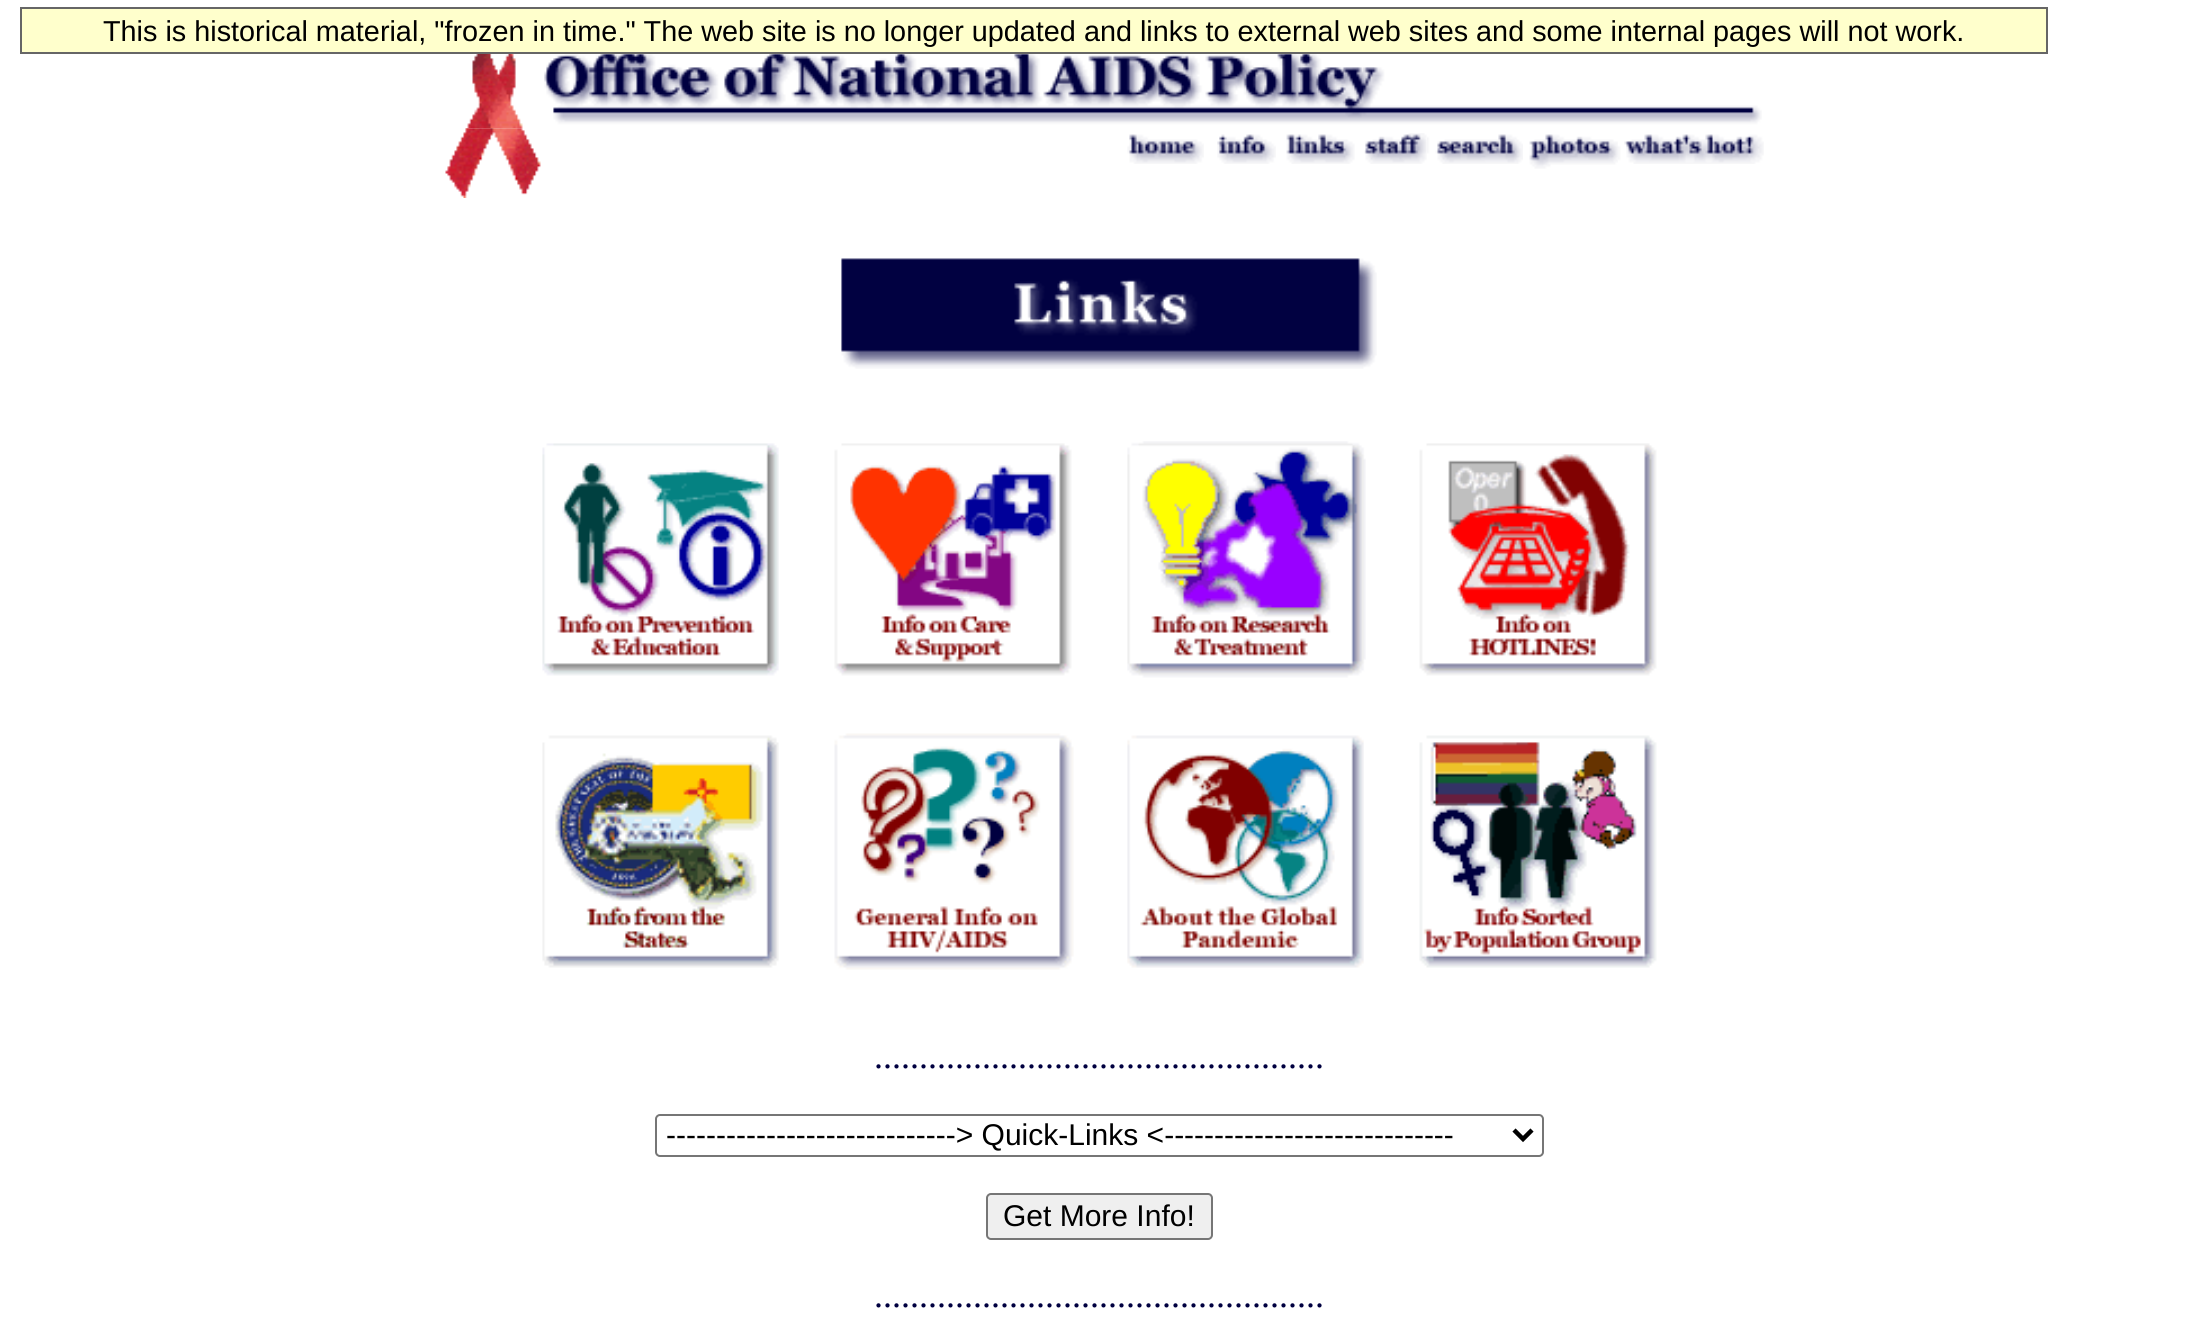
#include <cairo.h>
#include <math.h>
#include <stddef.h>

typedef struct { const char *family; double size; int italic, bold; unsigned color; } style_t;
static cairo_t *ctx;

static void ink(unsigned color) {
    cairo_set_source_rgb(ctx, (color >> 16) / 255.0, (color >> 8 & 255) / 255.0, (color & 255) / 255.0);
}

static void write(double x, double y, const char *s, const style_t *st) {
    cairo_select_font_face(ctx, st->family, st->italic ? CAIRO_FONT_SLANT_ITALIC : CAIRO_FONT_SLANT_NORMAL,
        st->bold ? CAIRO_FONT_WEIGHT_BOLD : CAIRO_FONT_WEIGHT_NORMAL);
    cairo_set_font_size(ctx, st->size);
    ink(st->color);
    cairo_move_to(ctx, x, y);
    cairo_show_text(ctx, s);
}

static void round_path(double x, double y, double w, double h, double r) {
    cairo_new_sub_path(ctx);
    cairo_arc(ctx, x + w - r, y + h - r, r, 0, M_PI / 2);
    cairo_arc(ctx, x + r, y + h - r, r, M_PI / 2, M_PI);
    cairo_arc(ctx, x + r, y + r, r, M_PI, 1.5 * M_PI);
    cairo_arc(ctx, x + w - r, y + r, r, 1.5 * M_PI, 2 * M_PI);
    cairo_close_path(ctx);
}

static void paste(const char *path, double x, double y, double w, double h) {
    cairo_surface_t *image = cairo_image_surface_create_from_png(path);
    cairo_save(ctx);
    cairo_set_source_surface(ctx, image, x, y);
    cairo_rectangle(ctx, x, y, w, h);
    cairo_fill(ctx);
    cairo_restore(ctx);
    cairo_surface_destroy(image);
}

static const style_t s1 = {"Liberation Sans", 28.8, 0, 0, 0x000000};
static const style_t s2 = {"Liberation Serif", 36, 0, 0, 0x000040};
static const style_t s3 = {"Liberation Sans", 30, 0, 0, 0x000000};

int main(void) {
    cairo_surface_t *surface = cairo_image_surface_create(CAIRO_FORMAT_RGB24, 2197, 1342);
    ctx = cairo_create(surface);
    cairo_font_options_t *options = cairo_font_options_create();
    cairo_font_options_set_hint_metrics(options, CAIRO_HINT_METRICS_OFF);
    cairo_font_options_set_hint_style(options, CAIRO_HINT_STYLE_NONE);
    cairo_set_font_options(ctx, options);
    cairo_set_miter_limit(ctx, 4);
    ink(0xffffff);
    cairo_paint(ctx);
    ink(0xffffcc);
    cairo_rectangle(ctx, 21, 8, 2026, 45);
    cairo_fill_preserve(ctx);
    ink(0x666666);
    cairo_stroke(ctx);
    write(103, 41, "This is historical material, \"frozen in time.\" The web site is no longer updated and links to external web sites and some internal pages will not work.", &s1);
    paste("pic1.png", 467, 54, 1295, 75);
    paste("pic2.png", 445, 128, 96, 70);
    paste("pic3.png", 1127, 134, 77, 30);
    paste("pic4.png", 1217, 134, 59, 30);
    paste("pic5.png", 1286, 134, 69, 30);
    paste("pic6.png", 1364, 133, 63, 31);
    paste("pic7.png", 1427, 134, 96, 30);
    paste("pic8.png", 1529, 134, 89, 35);
    paste("pic9.png", 1618, 134, 146, 30);
    paste("pic10.png", 841, 258, 536, 111);
    paste("pic11.png", 542, 443, 237, 233);
    paste("pic12.png", 834, 443, 238, 233);
    paste("pic13.png", 1127, 441, 239, 237);
    paste("pic14.png", 1419, 443, 238, 233);
    paste("pic15.png", 542, 735, 237, 233);
    paste("pic16.png", 834, 733, 240, 237);
    paste("pic17.png", 1127, 735, 237, 233);
    paste("pic18.png", 1419, 735, 238, 233);
    write(874, 1068, "..................................................", &s2);
    round_path(656, 1115, 887, 41, 4);
    ink(0x767676);
    cairo_stroke(ctx);
    cairo_new_path(ctx);
    cairo_move_to(ctx, 1514, 1130);
    cairo_line_to(ctx, 1523, 1139);
    cairo_line_to(ctx, 1532, 1130);
    ink(0x000000);
    cairo_set_line_width(ctx, 4.5);
    cairo_stroke(ctx);
    write(666, 1145, "-----------------------------> Quick-Links <-----------------------------", &s3);
    ink(0xefefef);
    round_path(987, 1194, 225, 45, 4);
    cairo_fill_preserve(ctx);
    ink(0x767676);
    cairo_set_line_width(ctx, 2);
    cairo_stroke(ctx);
    write(1003, 1226, "Get More Info!", &s3);
    write(874, 1307, "..................................................", &s2);
    cairo_surface_write_to_png(surface, "screenshot.png");
    cairo_font_options_destroy(options);
    cairo_destroy(ctx);
    cairo_surface_destroy(surface);
    return 0;
}
